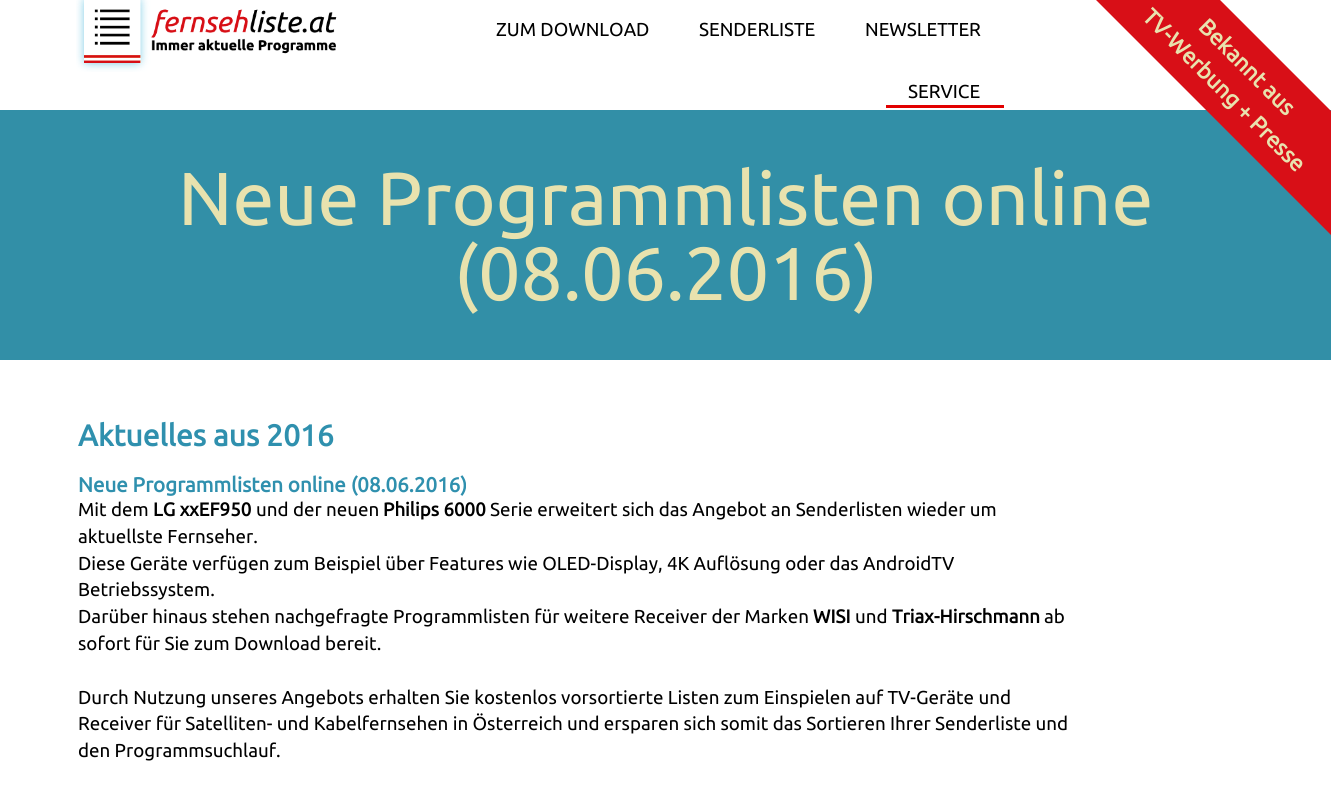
#include <cairo.h>
#include <math.h>
#include <stddef.h>

typedef struct { const char *family; double size; int italic, bold; unsigned color; } style_t;
static cairo_t *ctx;

static void ink(unsigned color) {
    cairo_set_source_rgb(ctx, (color >> 16) / 255.0, (color >> 8 & 255) / 255.0, (color & 255) / 255.0);
}

static void write(double x, double y, const char *s, const style_t *st) {
    cairo_select_font_face(ctx, st->family, st->italic ? CAIRO_FONT_SLANT_ITALIC : CAIRO_FONT_SLANT_NORMAL,
        st->bold ? CAIRO_FONT_WEIGHT_BOLD : CAIRO_FONT_WEIGHT_NORMAL);
    cairo_set_font_size(ctx, st->size);
    ink(st->color);
    cairo_move_to(ctx, x, y);
    cairo_show_text(ctx, s);
}

static void block(double x, double y, double w, double h, unsigned color) {
    ink(color);
    cairo_rectangle(ctx, x, y, w, h);
    cairo_fill(ctx);
}

static void paste(const char *path, double x, double y, double w, double h) {
    cairo_surface_t *image = cairo_image_surface_create_from_png(path);
    cairo_save(ctx);
    cairo_set_source_surface(ctx, image, x, y);
    cairo_rectangle(ctx, x, y, w, h);
    cairo_fill(ctx);
    cairo_restore(ctx);
    cairo_surface_destroy(image);
}

static const style_t s1 = {"Ubuntu", 18.75, 0, 0, 0x000000};
static const style_t s2 = {"Ubuntu", 75, 0, 0, 0xe8e2ae};
static const style_t s3 = {"Ubuntu", 22.5, 0, 1, 0xe8e2ae};
static const style_t s4 = {"Ubuntu", 30, 0, 1, 0x2f90ae};
static const style_t s5 = {"Ubuntu", 20.6, 0, 1, 0x2f90ae};
static const style_t s6 = {"Ubuntu", 18.75, 0, 1, 0x000000};

int main(void) {
    cairo_surface_t *surface = cairo_image_surface_create(CAIRO_FORMAT_RGB24, 1331, 806);
    ctx = cairo_create(surface);
    cairo_font_options_t *options = cairo_font_options_create();
    cairo_font_options_set_hint_metrics(options, CAIRO_HINT_METRICS_OFF);
    cairo_font_options_set_hint_style(options, CAIRO_HINT_STYLE_NONE);
    cairo_set_font_options(ctx, options);
    cairo_set_miter_limit(ctx, 4);
    ink(0xffffff);
    cairo_paint(ctx);
    paste("pic1.png", 76, 0, 261, 72);
    write(496, 36, "ZUM DOWNLOAD", &s1);
    write(699, 36, "SENDERLISTE", &s1);
    write(865, 36, "NEWSLETTER", &s1);
    block(886, 105, 118, 3, 0xe20000);
    write(908, 98, "SERVICE", &s1);
    block(0, 110, 1331, 250, 0x328fa7);
    write(178, 225, "Neue Programmlisten online", &s2);
    ink(0xd80f17);
    cairo_new_path(ctx);
    cairo_move_to(ctx, 1081, -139);
    cairo_line_to(ctx, 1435, 215);
    cairo_line_to(ctx, 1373, 277);
    cairo_line_to(ctx, 1019, -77);
    cairo_close_path(ctx);
    cairo_fill(ctx);
    cairo_save(ctx);
    cairo_translate(ctx, 1197, 28);
    cairo_rotate(ctx, 45 * M_PI / 180);
    write(0, 0, "Bekannt aus", &s3);
    cairo_restore(ctx);
    cairo_save(ctx);
    cairo_translate(ctx, 1141, 18);
    cairo_rotate(ctx, 45 * M_PI / 180);
    write(0, 0, "TV-Werbung + Presse", &s3);
    cairo_restore(ctx);
    write(454, 300, "(08.06.2016)", &s2);
    write(78, 446, "Aktuelles aus 2016", &s4);
    write(78, 492, "Neue Programmlisten online (08.06.2016)", &s5);
    write(78, 516, "Mit dem", &s1);
    write(153, 516, "LG xxEF950", &s6);
    write(256, 516, "und der neuen", &s1);
    write(383, 516, "Philips 6000", &s6);
    write(490, 516, "Serie erweitert sich das Angebot an Senderlisten wieder um", &s1);
    write(78, 543, "aktuellste Fernseher.", &s1);
    write(78, 570, "Diese Geräte verfügen zum Beispiel über Features wie OLED-Display, 4K Auflösung oder das AndroidTV", &s1);
    write(78, 596, "Betriebssystem.", &s1);
    write(78, 623, "Darüber hinaus stehen nachgefragte Programmlisten für weitere Receiver der Marken", &s1);
    write(813, 623, "WISI", &s6);
    write(855, 623, "und", &s1);
    write(892, 623, "Triax-Hirschmann", &s6);
    write(1044, 623, "ab", &s1);
    write(78, 650, "sofort für Sie zum Download bereit.", &s1);
    write(78, 704, "Durch Nutzung unseres Angebots erhalten Sie kostenlos vorsortierte Listen zum Einspielen auf TV-Geräte und", &s1);
    write(78, 730, "Receiver für Satelliten- und Kabelfernsehen in Österreich und ersparen sich somit das Sortieren Ihrer Senderliste und", &s1);
    write(78, 757, "den Programmsuchlauf.", &s1);
    cairo_surface_write_to_png(surface, "screenshot.png");
    cairo_font_options_destroy(options);
    cairo_destroy(ctx);
    cairo_surface_destroy(surface);
    return 0;
}
